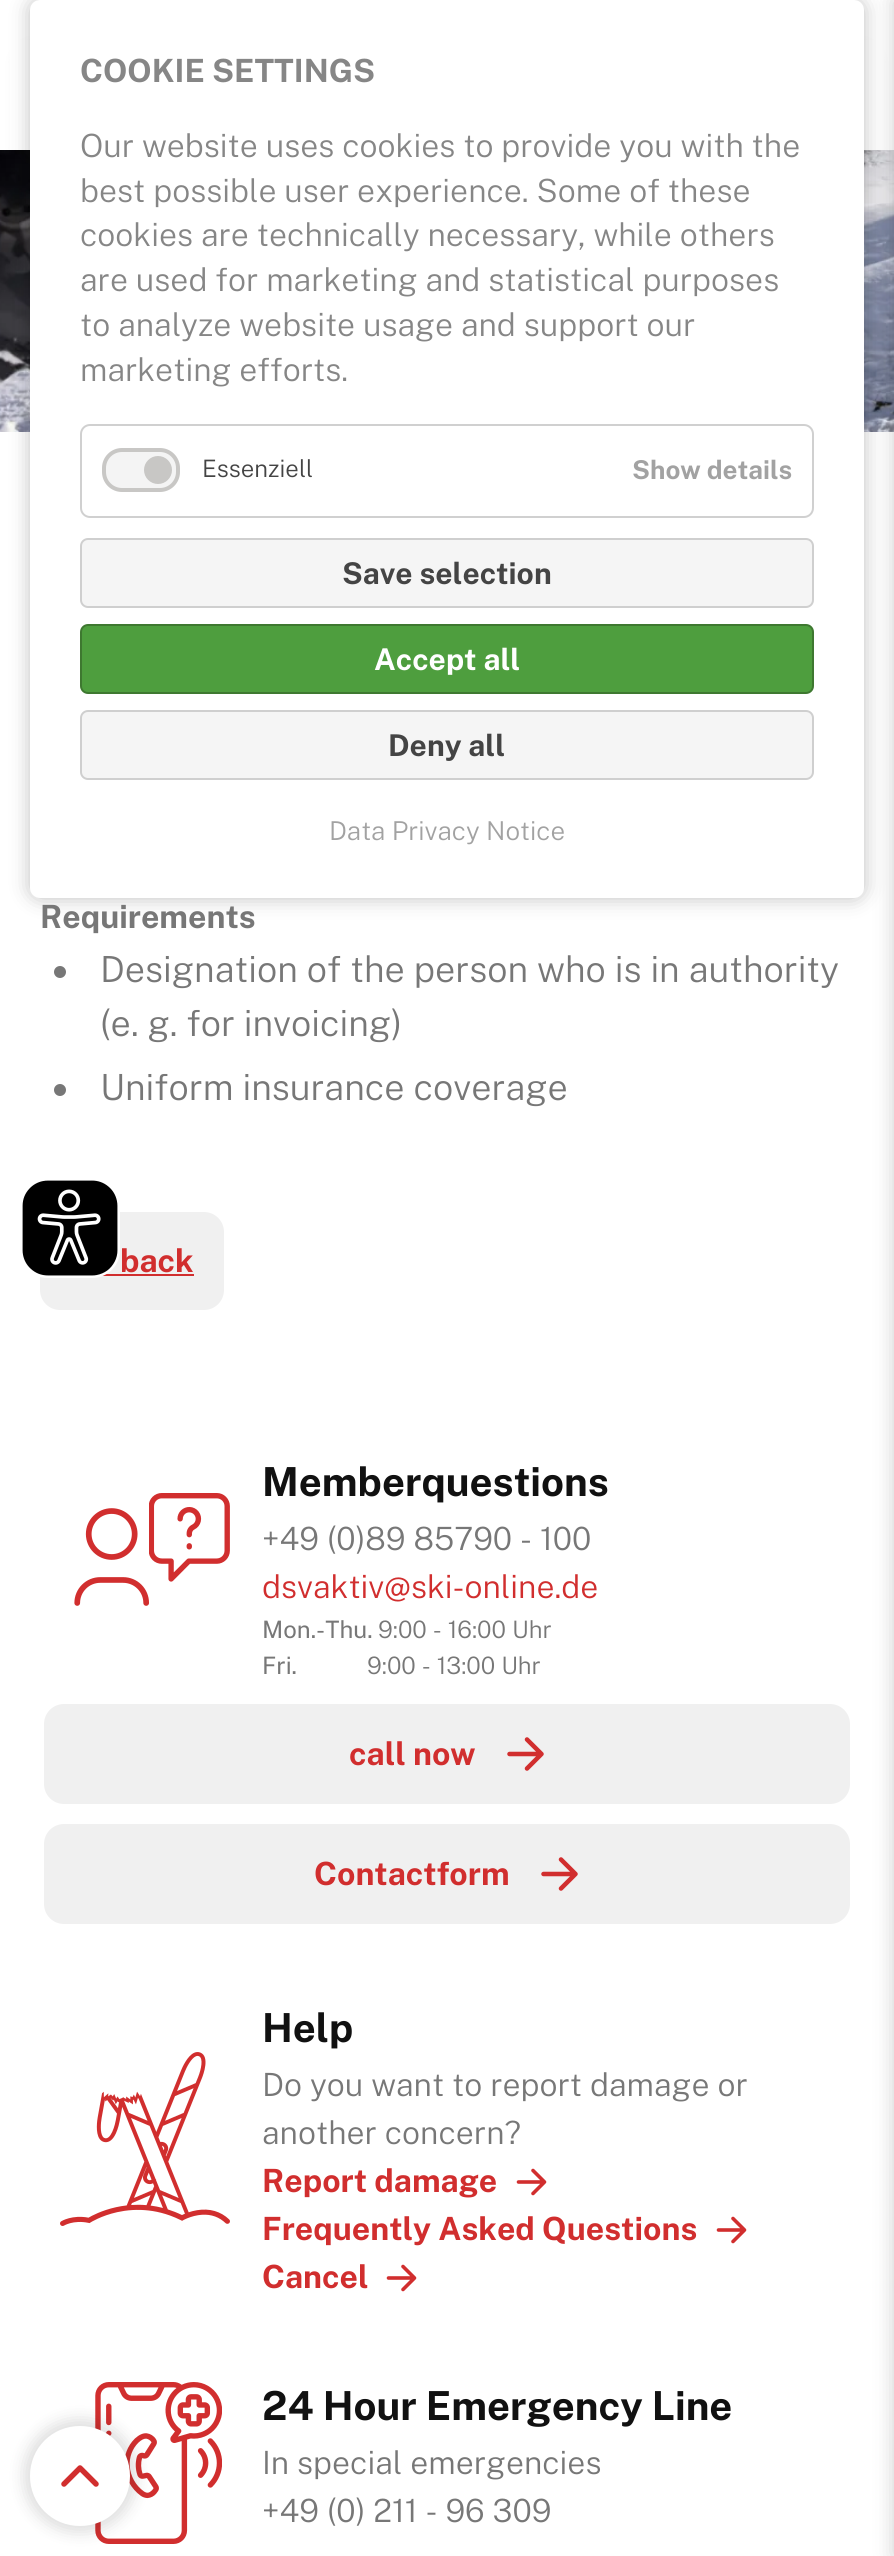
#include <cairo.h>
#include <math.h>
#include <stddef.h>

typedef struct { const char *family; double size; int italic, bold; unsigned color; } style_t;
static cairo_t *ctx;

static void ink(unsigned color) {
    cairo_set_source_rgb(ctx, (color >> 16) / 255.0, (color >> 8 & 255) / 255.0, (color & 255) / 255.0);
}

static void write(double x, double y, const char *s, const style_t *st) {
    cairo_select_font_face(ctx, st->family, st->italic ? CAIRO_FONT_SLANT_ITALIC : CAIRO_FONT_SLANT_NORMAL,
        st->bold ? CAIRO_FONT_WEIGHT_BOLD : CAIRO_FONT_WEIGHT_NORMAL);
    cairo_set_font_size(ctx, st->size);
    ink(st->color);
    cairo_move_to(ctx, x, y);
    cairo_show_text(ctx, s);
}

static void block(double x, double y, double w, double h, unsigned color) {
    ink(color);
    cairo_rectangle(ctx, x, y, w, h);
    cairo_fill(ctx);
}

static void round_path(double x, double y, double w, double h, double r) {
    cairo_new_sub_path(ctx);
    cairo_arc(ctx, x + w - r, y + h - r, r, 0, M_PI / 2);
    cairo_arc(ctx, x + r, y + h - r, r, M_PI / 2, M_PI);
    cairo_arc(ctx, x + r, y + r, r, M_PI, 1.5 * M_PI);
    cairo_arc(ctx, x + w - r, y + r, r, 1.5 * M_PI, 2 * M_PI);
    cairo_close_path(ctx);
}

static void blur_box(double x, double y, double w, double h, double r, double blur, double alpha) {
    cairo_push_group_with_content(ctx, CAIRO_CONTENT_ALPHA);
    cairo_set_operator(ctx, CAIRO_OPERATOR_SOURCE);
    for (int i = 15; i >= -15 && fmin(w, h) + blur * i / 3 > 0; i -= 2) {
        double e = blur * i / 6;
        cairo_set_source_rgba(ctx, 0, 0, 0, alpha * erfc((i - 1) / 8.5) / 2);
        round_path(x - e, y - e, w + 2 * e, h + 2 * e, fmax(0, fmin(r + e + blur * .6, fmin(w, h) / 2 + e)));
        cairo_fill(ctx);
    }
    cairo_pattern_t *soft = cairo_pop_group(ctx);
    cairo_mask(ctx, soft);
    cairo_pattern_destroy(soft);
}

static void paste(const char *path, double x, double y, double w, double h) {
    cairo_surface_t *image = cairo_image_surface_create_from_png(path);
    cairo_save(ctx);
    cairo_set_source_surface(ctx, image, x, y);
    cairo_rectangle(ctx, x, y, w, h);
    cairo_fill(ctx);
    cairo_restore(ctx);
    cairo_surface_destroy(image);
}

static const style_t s1 = {"Public Sans Thin", 32, 0, 0, 0x868686};
static const style_t s2 = {"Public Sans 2 Thin", 32, 0, 0, 0x868686};
static const style_t s3 = {"Public Sans 2 Thin", 24, 0, 0, 0x444444};
static const style_t s4 = {"Public Sans Thin", 26, 0, 0, 0xa2a2a2};
static const style_t s5 = {"Public Sans Thin", 30, 0, 0, 0x444444};
static const style_t s6 = {"Public Sans Thin", 30, 0, 0, 0xffffff};
static const style_t s7 = {"Public Sans 2 Thin", 26, 0, 0, 0xa2a2a2};
static const style_t s8 = {"Public Sans Thin", 32, 0, 0, 0x777777};
static const style_t s9 = {"Public Sans 2 Thin", 36, 0, 0, 0x777777};
static const style_t s10 = {"Public Sans Thin", 32, 0, 0, 0xd12e2e};
static const style_t s11 = {"Public Sans Thin", 40, 0, 0, 0x111111};
static const style_t s12 = {"Public Sans 2 Thin", 32, 0, 0, 0x777777};
static const style_t s13 = {"Public Sans 2 Thin", 32, 0, 0, 0xd12e2e};
static const style_t s14 = {"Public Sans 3 Thin", 24, 0, 0, 0x777777};
static const style_t s15 = {"Public Sans 2 Thin", 24, 0, 0, 0x777777};

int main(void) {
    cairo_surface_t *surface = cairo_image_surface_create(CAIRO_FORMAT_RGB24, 894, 2556);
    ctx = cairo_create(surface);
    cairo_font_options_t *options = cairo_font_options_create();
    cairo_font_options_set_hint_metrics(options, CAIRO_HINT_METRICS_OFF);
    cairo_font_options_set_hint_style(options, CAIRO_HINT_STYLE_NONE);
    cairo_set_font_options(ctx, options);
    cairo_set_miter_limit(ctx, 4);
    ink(0xffffff);
    cairo_paint(ctx);
    paste("pic1.png", 0, 150, 894, 282);
    ink(0x121212);
    blur_box(30, 60, 834, 90, 0, 10, 0.5);
    block(10, 40, 874, 110, 0xffffff);
    ink(0x000000);
    blur_box(894, 0, 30, 2556, 0, 10, 0.2);
    blur_box(30, 0, 834, 898, 10, 10, 0.25);
    ink(0xffffff);
    round_path(30, 0, 834, 898, 10);
    cairo_fill(ctx);
    write(80, 82, "COOKIE SETTINGS", &s1);
    write(80, 157, "Our website uses cookies to provide you with the", &s2);
    write(80, 202, "best possible user experience. Some of these", &s2);
    write(80, 246, "cookies are technically necessary, while others", &s2);
    write(80, 291, "are used for marketing and statistical purposes", &s2);
    write(80, 336, "to analyze website usage and support our", &s2);
    write(80, 381, "marketing efforts.", &s2);
    round_path(81, 425, 732, 92, 9);
    ink(0xd0d0d0);
    cairo_stroke(ctx);
    ink(0xf4f4f4);
    round_path(104, 450, 74, 40, 18);
    cairo_fill_preserve(ctx);
    ink(0xc8c7c5);
    cairo_set_line_width(ctx, 4);
    cairo_stroke(ctx);
    cairo_arc(ctx, 158, 470, 14, 0, 2 * M_PI);
    cairo_fill(ctx);
    write(202, 477, "Essenziell", &s3);
    write(632, 479, "Show details", &s4);
    ink(0xf5f5f5);
    round_path(81, 539, 732, 68, 7);
    cairo_fill_preserve(ctx);
    ink(0xcfcfcf);
    cairo_set_line_width(ctx, 2);
    cairo_stroke(ctx);
    write(342, 584, "Save selection", &s5);
    ink(0x4e9e3e);
    round_path(81, 625, 732, 68, 7);
    cairo_fill_preserve(ctx);
    ink(0x3e7830);
    cairo_stroke(ctx);
    write(374, 670, "Accept all", &s6);
    ink(0xf5f5f5);
    round_path(81, 711, 732, 68, 7);
    cairo_fill_preserve(ctx);
    ink(0xcfcfcf);
    cairo_stroke(ctx);
    write(388, 756, "Deny all", &s5);
    write(329, 840, "Data Privacy Notice", &s7);
    write(40, 928, "Requirements", &s8);
    cairo_new_path(ctx);
    cairo_arc(ctx, 60, 972, 6, 0, 2 * M_PI);
    cairo_fill(ctx);
    write(100, 982, "Designation of the person who is in authority", &s9);
    write(100, 1036, "(e. g. for invoicing)", &s9);
    cairo_new_path(ctx);
    cairo_arc(ctx, 60, 1090, 6, 0, 2 * M_PI);
    cairo_fill(ctx);
    write(100, 1100, "Uniform insurance coverage", &s9);
    ink(0xf0f0f0);
    round_path(40, 1212, 184, 98, 20);
    cairo_fill(ctx);
    write(120, 1272, "back", &s10);
    block(102, 1274, 92, 2, 0xd12e2e);
    paste("pic2.png", 74, 1493, 156, 113);
    write(262, 1496, "Memberquestions", &s11);
    write(262, 1550, "+49 (0)89 85790 - 100", &s12);
    write(262, 1598, "dsvaktiv@ski-online.de", &s13);
    write(262, 1638, "Mon.-Thu.", &s14);
    write(378, 1638, "9:00 - 16:00 Uhr", &s15);
    write(262, 1674, "Fri.", &s14);
    write(367, 1674, "9:00 - 13:00 Uhr", &s15);
    ink(0xf0f0f0);
    round_path(44, 1704, 806, 100, 20);
    cairo_fill(ctx);
    write(349, 1765, "call now", &s10);
    cairo_new_path(ctx);
    cairo_move_to(ctx, 509.5, 1754);
    cairo_line_to(ctx, 540.5, 1754);
    cairo_move_to(ctx, 527, 1768.5);
    cairo_line_to(ctx, 541.5, 1754);
    cairo_move_to(ctx, 527, 1739.5);
    cairo_line_to(ctx, 541.5, 1754);
    cairo_set_line_width(ctx, 4.5);
    cairo_set_line_cap(ctx, CAIRO_LINE_CAP_ROUND);
    cairo_set_line_join(ctx, CAIRO_LINE_JOIN_ROUND);
    cairo_stroke(ctx);
    ink(0xf0f0f0);
    round_path(44, 1824, 806, 100, 20);
    cairo_fill(ctx);
    write(314, 1885, "Contactform", &s10);
    cairo_new_path(ctx);
    cairo_move_to(ctx, 543.5, 1874);
    cairo_line_to(ctx, 574.5, 1874);
    cairo_move_to(ctx, 561, 1888.5);
    cairo_line_to(ctx, 575.5, 1874);
    cairo_move_to(ctx, 561, 1859.5);
    cairo_line_to(ctx, 575.5, 1874);
    cairo_stroke(ctx);
    paste("pic3.png", 60, 2052, 170, 174);
    write(262, 2042, "Help", &s11);
    write(262, 2096, "Do you want to report damage or", &s12);
    write(262, 2144, "another concern?", &s12);
    write(262, 2192, "Report damage", &s10);
    cairo_new_path(ctx);
    cairo_move_to(ctx, 518.5, 2182);
    cairo_line_to(ctx, 543.5, 2182);
    cairo_move_to(ctx, 533, 2193.5);
    cairo_line_to(ctx, 544.5, 2182);
    cairo_move_to(ctx, 533, 2170.5);
    cairo_line_to(ctx, 544.5, 2182);
    cairo_set_line_width(ctx, 3.6);
    cairo_stroke(ctx);
    write(262, 2240, "Frequently Asked Questions", &s10);
    cairo_new_path(ctx);
    cairo_move_to(ctx, 718.5, 2230);
    cairo_line_to(ctx, 743.5, 2230);
    cairo_move_to(ctx, 733, 2241.5);
    cairo_line_to(ctx, 744.5, 2230);
    cairo_move_to(ctx, 733, 2218.5);
    cairo_line_to(ctx, 744.5, 2230);
    cairo_stroke(ctx);
    write(262, 2288, "Cancel", &s10);
    cairo_new_path(ctx);
    cairo_move_to(ctx, 388.5, 2278);
    cairo_line_to(ctx, 413.5, 2278);
    cairo_move_to(ctx, 403, 2289.5);
    cairo_line_to(ctx, 414.5, 2278);
    cairo_move_to(ctx, 403, 2266.5);
    cairo_line_to(ctx, 414.5, 2278);
    cairo_stroke(ctx);
    paste("pic4.png", 95, 2382, 127, 162);
    write(262, 2420, "24 Hour Emergency Line", &s11);
    write(262, 2474, "In special emergencies", &s12);
    write(262, 2522, "+49 (0) 211 - 96 309", &s12);
    paste("pic5.png", 22, 1180, 98, 98);
    ink(0x1a1a1a);
    blur_box(24, 2420, 112, 112, 56, 8, 0.15);
    ink(0xffffff);
    cairo_new_path(ctx);
    cairo_move_to(ctx, 80, 2526);
    cairo_curve_to(ctx, 52, 2526, 30, 2504, 30, 2476);
    cairo_curve_to(ctx, 30, 2448, 52, 2426, 80, 2426);
    cairo_curve_to(ctx, 108, 2426, 130, 2448, 130, 2476);
    cairo_curve_to(ctx, 130, 2504, 108, 2526, 80, 2526);
    cairo_close_path(ctx);
    cairo_fill(ctx);
    cairo_new_path(ctx);
    cairo_move_to(ctx, 96, 2484);
    cairo_line_to(ctx, 80, 2468);
    cairo_line_to(ctx, 64, 2484);
    ink(0xd12e2e);
    cairo_set_line_width(ctx, 5.5);
    cairo_stroke(ctx);
    cairo_surface_write_to_png(surface, "screenshot.png");
    cairo_font_options_destroy(options);
    cairo_destroy(ctx);
    cairo_surface_destroy(surface);
    return 0;
}
